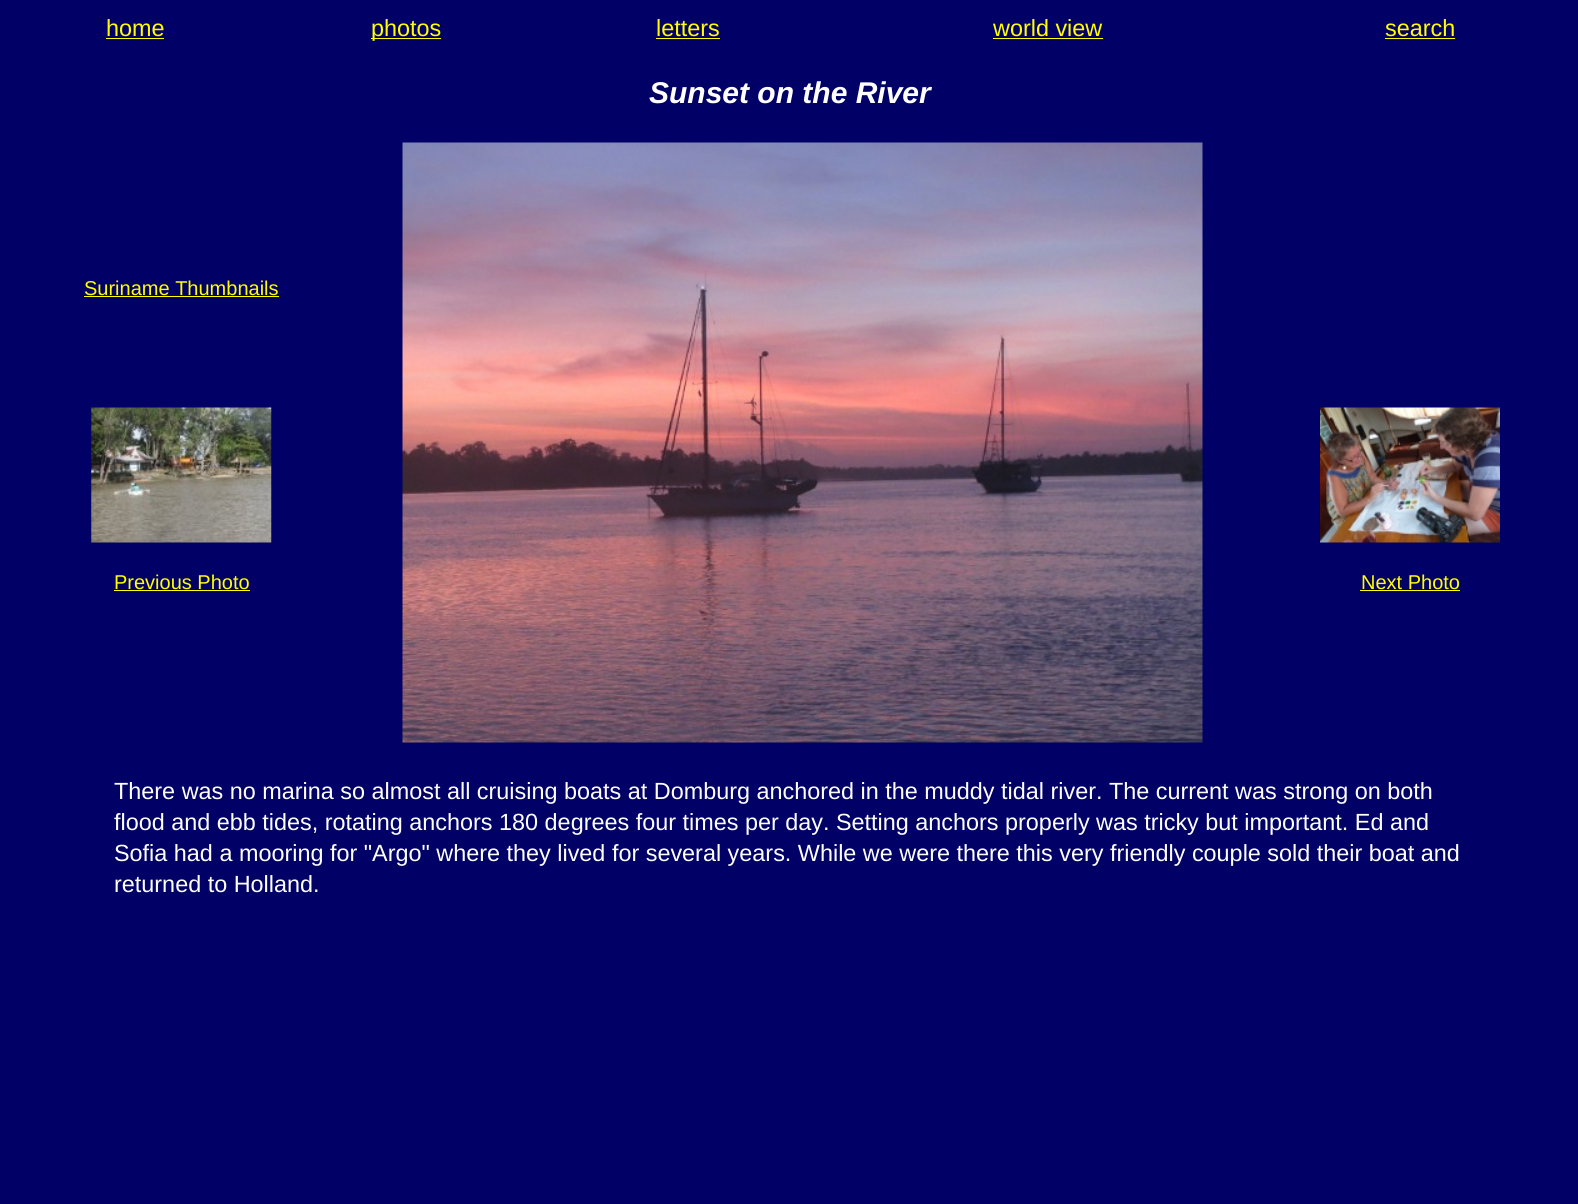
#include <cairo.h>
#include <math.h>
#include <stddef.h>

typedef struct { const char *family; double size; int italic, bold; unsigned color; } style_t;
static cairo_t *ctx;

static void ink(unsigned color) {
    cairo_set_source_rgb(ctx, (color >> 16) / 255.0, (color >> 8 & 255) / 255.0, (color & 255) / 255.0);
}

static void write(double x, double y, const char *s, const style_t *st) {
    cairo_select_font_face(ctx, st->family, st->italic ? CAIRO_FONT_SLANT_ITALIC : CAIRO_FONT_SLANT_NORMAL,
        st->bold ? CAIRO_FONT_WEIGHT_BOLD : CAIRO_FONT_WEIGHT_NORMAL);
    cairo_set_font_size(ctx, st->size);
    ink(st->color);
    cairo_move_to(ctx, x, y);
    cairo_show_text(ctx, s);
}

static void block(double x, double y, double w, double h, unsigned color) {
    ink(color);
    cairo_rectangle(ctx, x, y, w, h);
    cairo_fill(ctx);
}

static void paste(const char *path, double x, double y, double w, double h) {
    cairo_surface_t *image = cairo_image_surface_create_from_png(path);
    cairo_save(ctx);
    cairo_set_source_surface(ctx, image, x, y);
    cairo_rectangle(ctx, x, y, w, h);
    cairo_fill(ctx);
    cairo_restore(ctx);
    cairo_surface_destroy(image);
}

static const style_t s1 = {"Liberation Sans", 23.4, 0, 0, 0xffff00};
static const style_t s2 = {"Liberation Sans", 30, 1, 1, 0xffffff};
static const style_t s3 = {"Liberation Sans", 20, 0, 0, 0xffff00};
static const style_t s4 = {"Liberation Sans", 23.4, 0, 0, 0xffffff};

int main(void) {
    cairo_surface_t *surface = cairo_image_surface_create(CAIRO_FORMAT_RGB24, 1578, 1204);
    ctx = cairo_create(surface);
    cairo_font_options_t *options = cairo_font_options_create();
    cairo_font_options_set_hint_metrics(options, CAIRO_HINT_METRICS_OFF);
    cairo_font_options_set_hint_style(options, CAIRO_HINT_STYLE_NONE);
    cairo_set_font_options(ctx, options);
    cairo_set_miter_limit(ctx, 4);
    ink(0x000066);
    cairo_paint(ctx);
    write(106, 36, "home", &s1);
    block(106, 38, 58, 1, 0xffff00);
    block(371, 38, 70, 1, 0xffff00);
    write(371, 36, "photos", &s1);
    write(656, 36, "letters", &s1);
    block(656, 38, 64, 1, 0xffff00);
    write(993, 36, "world view", &s1);
    block(993, 38, 110, 1, 0xffff00);
    write(1385, 36, "search", &s1);
    block(1385, 38, 70, 1, 0xffff00);
    write(649, 103, "Sunset on the River", &s2);
    write(84, 295, "Suriname Thumbnails", &s3);
    block(84, 296, 195, 1, 0xffff00);
    paste("pic1.png", 91, 407, 181, 136);
    write(114, 589, "Previous Photo", &s3);
    block(114, 590, 136, 1, 0xffff00);
    paste("pic2.png", 402, 142, 801, 601);
    paste("pic3.png", 1320, 407, 180, 136);
    write(1361, 589, "Next Photo", &s3);
    block(1360, 590, 100, 1, 0xffff00);
    write(114, 799, "There was no marina so almost all cruising boats at Domburg anchored in the muddy tidal river. The current was strong on both", &s4);
    write(114, 830, "flood and ebb tides, rotating anchors 180 degrees four times per day. Setting anchors properly was tricky but important. Ed and", &s4);
    write(114, 861, "Sofia had a mooring for \"Argo\" where they lived for several years. While we were there this very friendly couple sold their boat and", &s4);
    write(114, 892, "returned to Holland.", &s4);
    cairo_surface_write_to_png(surface, "screenshot.png");
    cairo_font_options_destroy(options);
    cairo_destroy(ctx);
    cairo_surface_destroy(surface);
    return 0;
}
